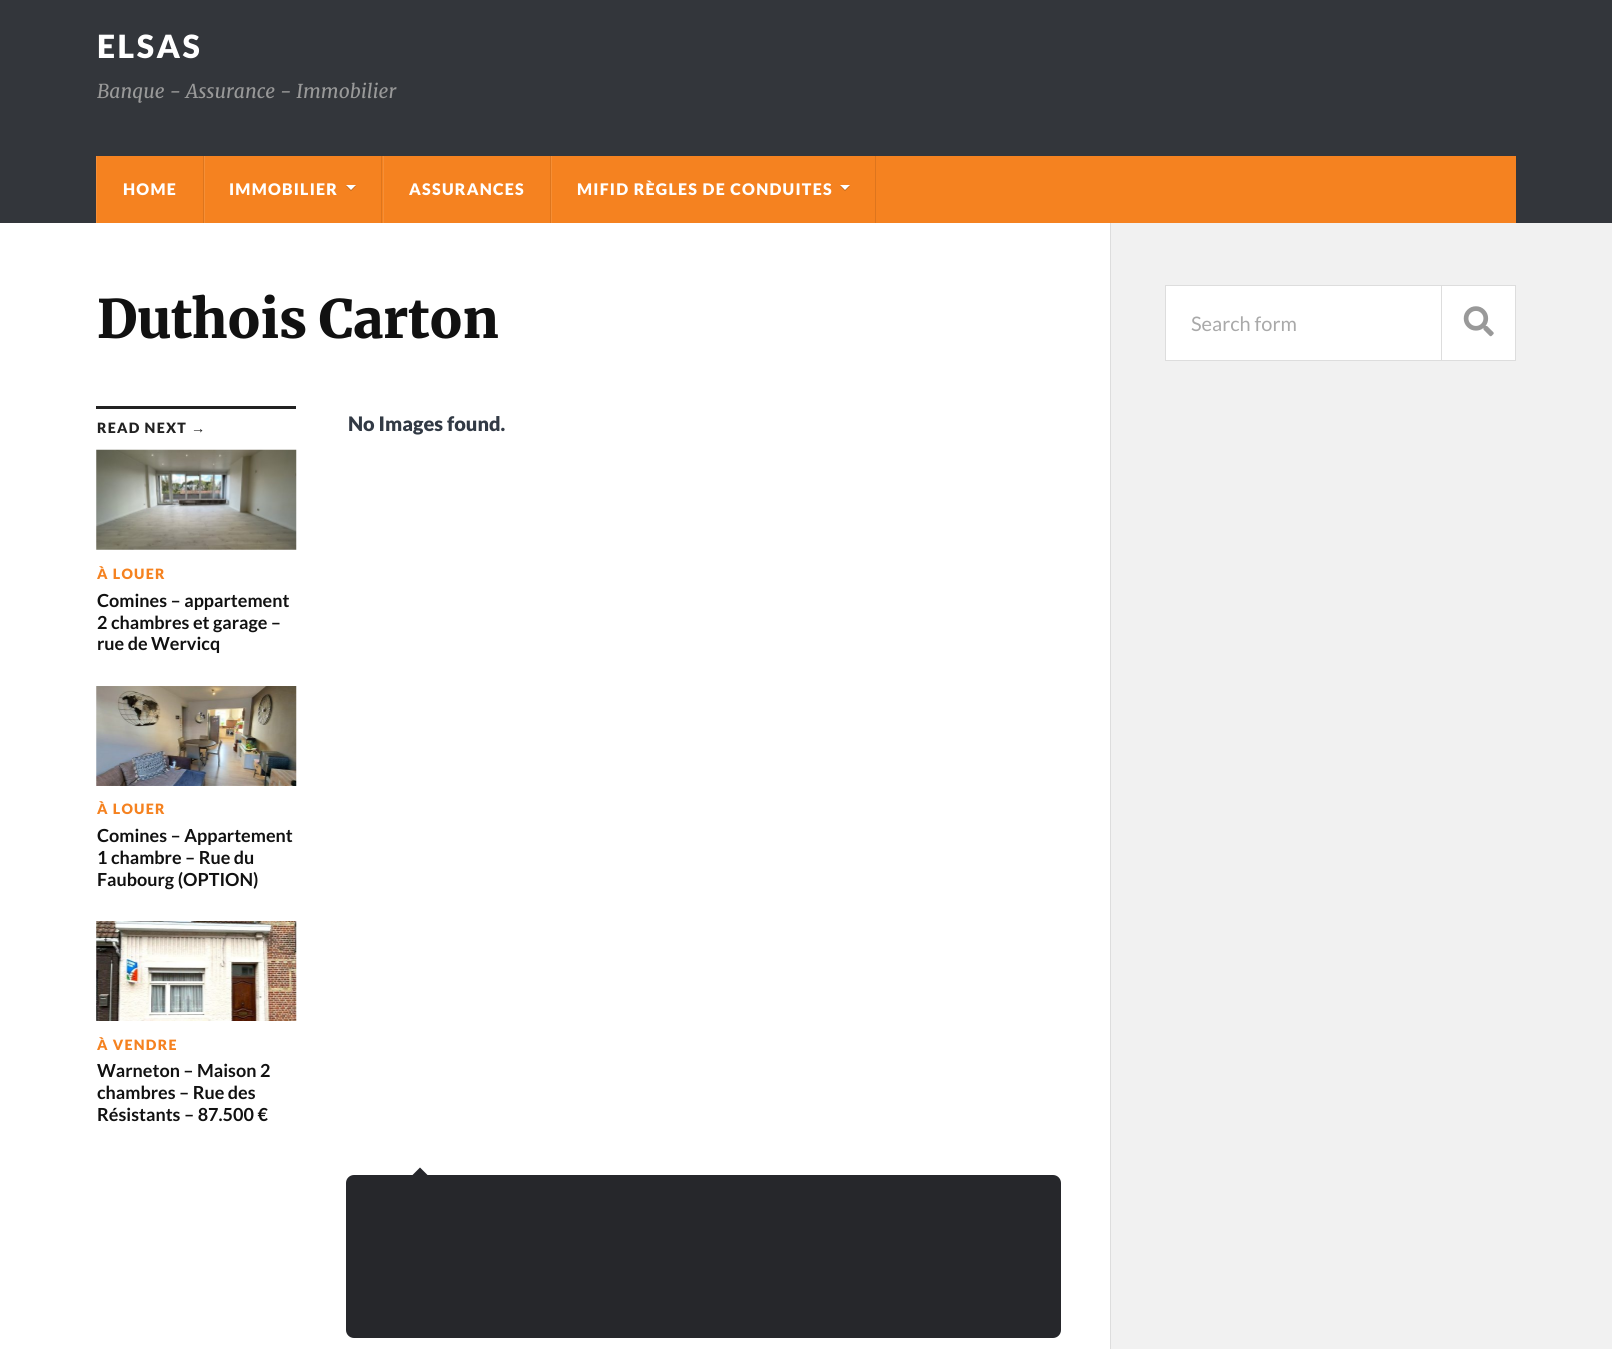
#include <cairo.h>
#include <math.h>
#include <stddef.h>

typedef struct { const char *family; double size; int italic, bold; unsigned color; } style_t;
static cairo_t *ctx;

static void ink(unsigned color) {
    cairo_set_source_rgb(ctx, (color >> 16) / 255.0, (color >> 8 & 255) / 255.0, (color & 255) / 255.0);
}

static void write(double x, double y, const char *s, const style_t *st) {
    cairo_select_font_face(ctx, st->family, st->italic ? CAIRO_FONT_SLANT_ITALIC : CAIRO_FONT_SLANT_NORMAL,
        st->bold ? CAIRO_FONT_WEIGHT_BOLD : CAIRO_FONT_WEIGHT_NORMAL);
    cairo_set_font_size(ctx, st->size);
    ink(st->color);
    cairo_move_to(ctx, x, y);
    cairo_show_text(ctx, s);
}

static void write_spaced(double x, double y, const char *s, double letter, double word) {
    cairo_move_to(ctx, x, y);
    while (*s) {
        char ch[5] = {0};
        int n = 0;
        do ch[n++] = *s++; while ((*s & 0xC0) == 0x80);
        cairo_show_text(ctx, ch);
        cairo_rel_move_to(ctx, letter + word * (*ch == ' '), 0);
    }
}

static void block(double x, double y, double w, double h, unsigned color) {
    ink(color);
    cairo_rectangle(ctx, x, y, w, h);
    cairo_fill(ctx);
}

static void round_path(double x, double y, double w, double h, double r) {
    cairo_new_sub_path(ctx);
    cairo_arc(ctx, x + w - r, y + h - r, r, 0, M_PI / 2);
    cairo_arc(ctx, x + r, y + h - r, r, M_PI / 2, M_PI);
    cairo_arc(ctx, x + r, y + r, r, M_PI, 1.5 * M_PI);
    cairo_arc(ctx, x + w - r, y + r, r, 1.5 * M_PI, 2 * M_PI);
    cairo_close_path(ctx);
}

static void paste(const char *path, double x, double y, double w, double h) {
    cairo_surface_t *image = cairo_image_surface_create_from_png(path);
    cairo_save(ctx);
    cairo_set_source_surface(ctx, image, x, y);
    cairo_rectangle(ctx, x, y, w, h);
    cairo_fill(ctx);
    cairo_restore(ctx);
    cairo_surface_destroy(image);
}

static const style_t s1 = {"Merriweather", 19.1, 1, 0, 0x999999};
static const style_t s2 = {"Lato", 18, 0, 1, 0x111111};
static const style_t s3 = {"Lato Black", 20, 0, 0, 0x323a45};
static const style_t s4 = {"Lato", 20, 0, 0, 0xa9a9a9};

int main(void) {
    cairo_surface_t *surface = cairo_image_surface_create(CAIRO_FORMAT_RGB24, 1612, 1349);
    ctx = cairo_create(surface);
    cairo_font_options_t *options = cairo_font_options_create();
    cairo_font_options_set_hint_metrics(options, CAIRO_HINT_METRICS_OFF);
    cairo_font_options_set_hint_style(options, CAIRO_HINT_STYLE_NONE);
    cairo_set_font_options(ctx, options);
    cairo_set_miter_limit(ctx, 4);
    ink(0xf1f1f1);
    cairo_paint(ctx);
    block(0, 0, 1612, 223, 0x33363b);
    cairo_select_font_face(ctx, "Lato Black", CAIRO_FONT_SLANT_NORMAL, CAIRO_FONT_WEIGHT_NORMAL);
    cairo_set_font_size(ctx, 32);
    ink(0xffffff);
    write_spaced(97, 58, "ELSAS", 2.5, 0);
    write(97, 98, "Banque - Assurance - Immobilier", &s1);
    block(97, 156, 1419, 67, 0xf58220);
    block(203, 156, 1, 67, 0xdd751d);
    block(96, 156, 1, 67, 0xf68f36);
    cairo_select_font_face(ctx, "Lato Black", CAIRO_FONT_SLANT_NORMAL, CAIRO_FONT_WEIGHT_NORMAL);
    cairo_set_font_size(ctx, 16);
    ink(0xffffff);
    write_spaced(123, 195, "HOME", 1.25, 0);
    block(381, 156, 1, 67, 0xdd751d);
    block(204, 156, 1, 67, 0xf68f36);
    ink(0xffffff);
    write_spaced(229, 195, "IMMOBILIER", 1.25, 0);
    ink(0xb86218);
    cairo_new_path(ctx);
    cairo_move_to(ctx, 346, 186);
    cairo_line_to(ctx, 356, 186);
    cairo_line_to(ctx, 351, 191);
    cairo_close_path(ctx);
    cairo_fill(ctx);
    ink(0xffffff);
    cairo_new_path(ctx);
    cairo_move_to(ctx, 346, 185);
    cairo_line_to(ctx, 356, 185);
    cairo_line_to(ctx, 351, 190);
    cairo_close_path(ctx);
    cairo_fill(ctx);
    block(550, 156, 1, 67, 0xdd751d);
    block(383, 156, 1, 67, 0xf68f36);
    ink(0xffffff);
    write_spaced(409, 195, "ASSURANCES", 1.25, 0);
    block(875, 156, 1, 67, 0xdd751d);
    block(551, 156, 1, 67, 0xf68f36);
    ink(0xffffff);
    write_spaced(577, 195, "MIFID RÈGLES DE CONDUITES", 1.25, 0);
    ink(0xb86218);
    cairo_new_path(ctx);
    cairo_move_to(ctx, 840, 186);
    cairo_line_to(ctx, 850, 186);
    cairo_line_to(ctx, 845, 191);
    cairo_close_path(ctx);
    cairo_fill(ctx);
    ink(0xffffff);
    cairo_new_path(ctx);
    cairo_move_to(ctx, 840, 185);
    cairo_line_to(ctx, 850, 185);
    cairo_line_to(ctx, 845, 190);
    cairo_close_path(ctx);
    cairo_fill(ctx);
    block(0, 223, 1110, 1126, 0xffffff);
    cairo_select_font_face(ctx, "Merriweather Black", CAIRO_FONT_SLANT_NORMAL, CAIRO_FONT_WEIGHT_NORMAL);
    cairo_set_font_size(ctx, 53);
    ink(0x111111);
    write_spaced(97, 338, "Duthois Carton", -0.5, 0);
    block(96, 406, 200, 3, 0x222222);
    cairo_select_font_face(ctx, "Lato Black", CAIRO_FONT_SLANT_NORMAL, CAIRO_FONT_WEIGHT_NORMAL);
    cairo_set_font_size(ctx, 14.25);
    write_spaced(97, 433, "READ NEXT", 1.25, 0);
    cairo_select_font_face(ctx, "Liberation Sans", CAIRO_FONT_SLANT_NORMAL, CAIRO_FONT_WEIGHT_BOLD);
    write_spaced(191, 433, "→", 1.25, 0);
    paste("pic1.png", 96, 449, 201, 101);
    cairo_select_font_face(ctx, "Lato Black", CAIRO_FONT_SLANT_NORMAL, CAIRO_FONT_WEIGHT_NORMAL);
    ink(0xf58220);
    write_spaced(97, 579, "À LOUER", 1.25, 0);
    write(97, 607, "Comines – appartement", &s2);
    write(97, 629, "2 chambres et garage –", &s2);
    write(97, 650, "rue de Wervicq", &s2);
    paste("pic2.png", 96, 686, 201, 100);
    cairo_select_font_face(ctx, "Lato Black", CAIRO_FONT_SLANT_NORMAL, CAIRO_FONT_WEIGHT_NORMAL);
    cairo_set_font_size(ctx, 14.25);
    ink(0xf58220);
    write_spaced(97, 814, "À LOUER", 1.25, 0);
    write(97, 842, "Comines – Appartement", &s2);
    write(97, 864, "1 chambre – Rue du", &s2);
    write(97, 886, "Faubourg (OPTION)", &s2);
    paste("pic3.png", 96, 921, 201, 100);
    cairo_select_font_face(ctx, "Lato Black", CAIRO_FONT_SLANT_NORMAL, CAIRO_FONT_WEIGHT_NORMAL);
    cairo_set_font_size(ctx, 14.25);
    ink(0xf58220);
    write_spaced(97, 1050, "À VENDRE", 1.25, 0);
    write(97, 1077, "Warneton – Maison 2", &s2);
    write(97, 1099, "chambres – Rue des", &s2);
    write(97, 1121, "Résistants – 87.500 €", &s2);
    write(348, 431, "No Images found.", &s3);
    ink(0x26272b);
    round_path(346, 1175, 715, 163, 8);
    cairo_fill(ctx);
    ink(0x25262b);
    cairo_new_path(ctx);
    cairo_move_to(ctx, 427.5, 1175);
    cairo_line_to(ctx, 412.5, 1175);
    cairo_line_to(ctx, 420, 1167.5);
    cairo_close_path(ctx);
    cairo_fill(ctx);
    block(1110, 223, 1, 1126, 0xdddddd);
    ink(0xffffff);
    cairo_rectangle(ctx, 1165.5, 285.5, 350, 75);
    cairo_fill_preserve(ctx);
    ink(0xdddddd);
    cairo_set_line_width(ctx, 1);
    cairo_stroke(ctx);
    write(1191, 331, "Search form", &s4);
    block(1441, 286, 1, 74, 0xdddddd);
    paste("pic4.png", 1463, 306, 31, 31);
    cairo_surface_write_to_png(surface, "screenshot.png");
    cairo_font_options_destroy(options);
    cairo_destroy(ctx);
    cairo_surface_destroy(surface);
    return 0;
}
